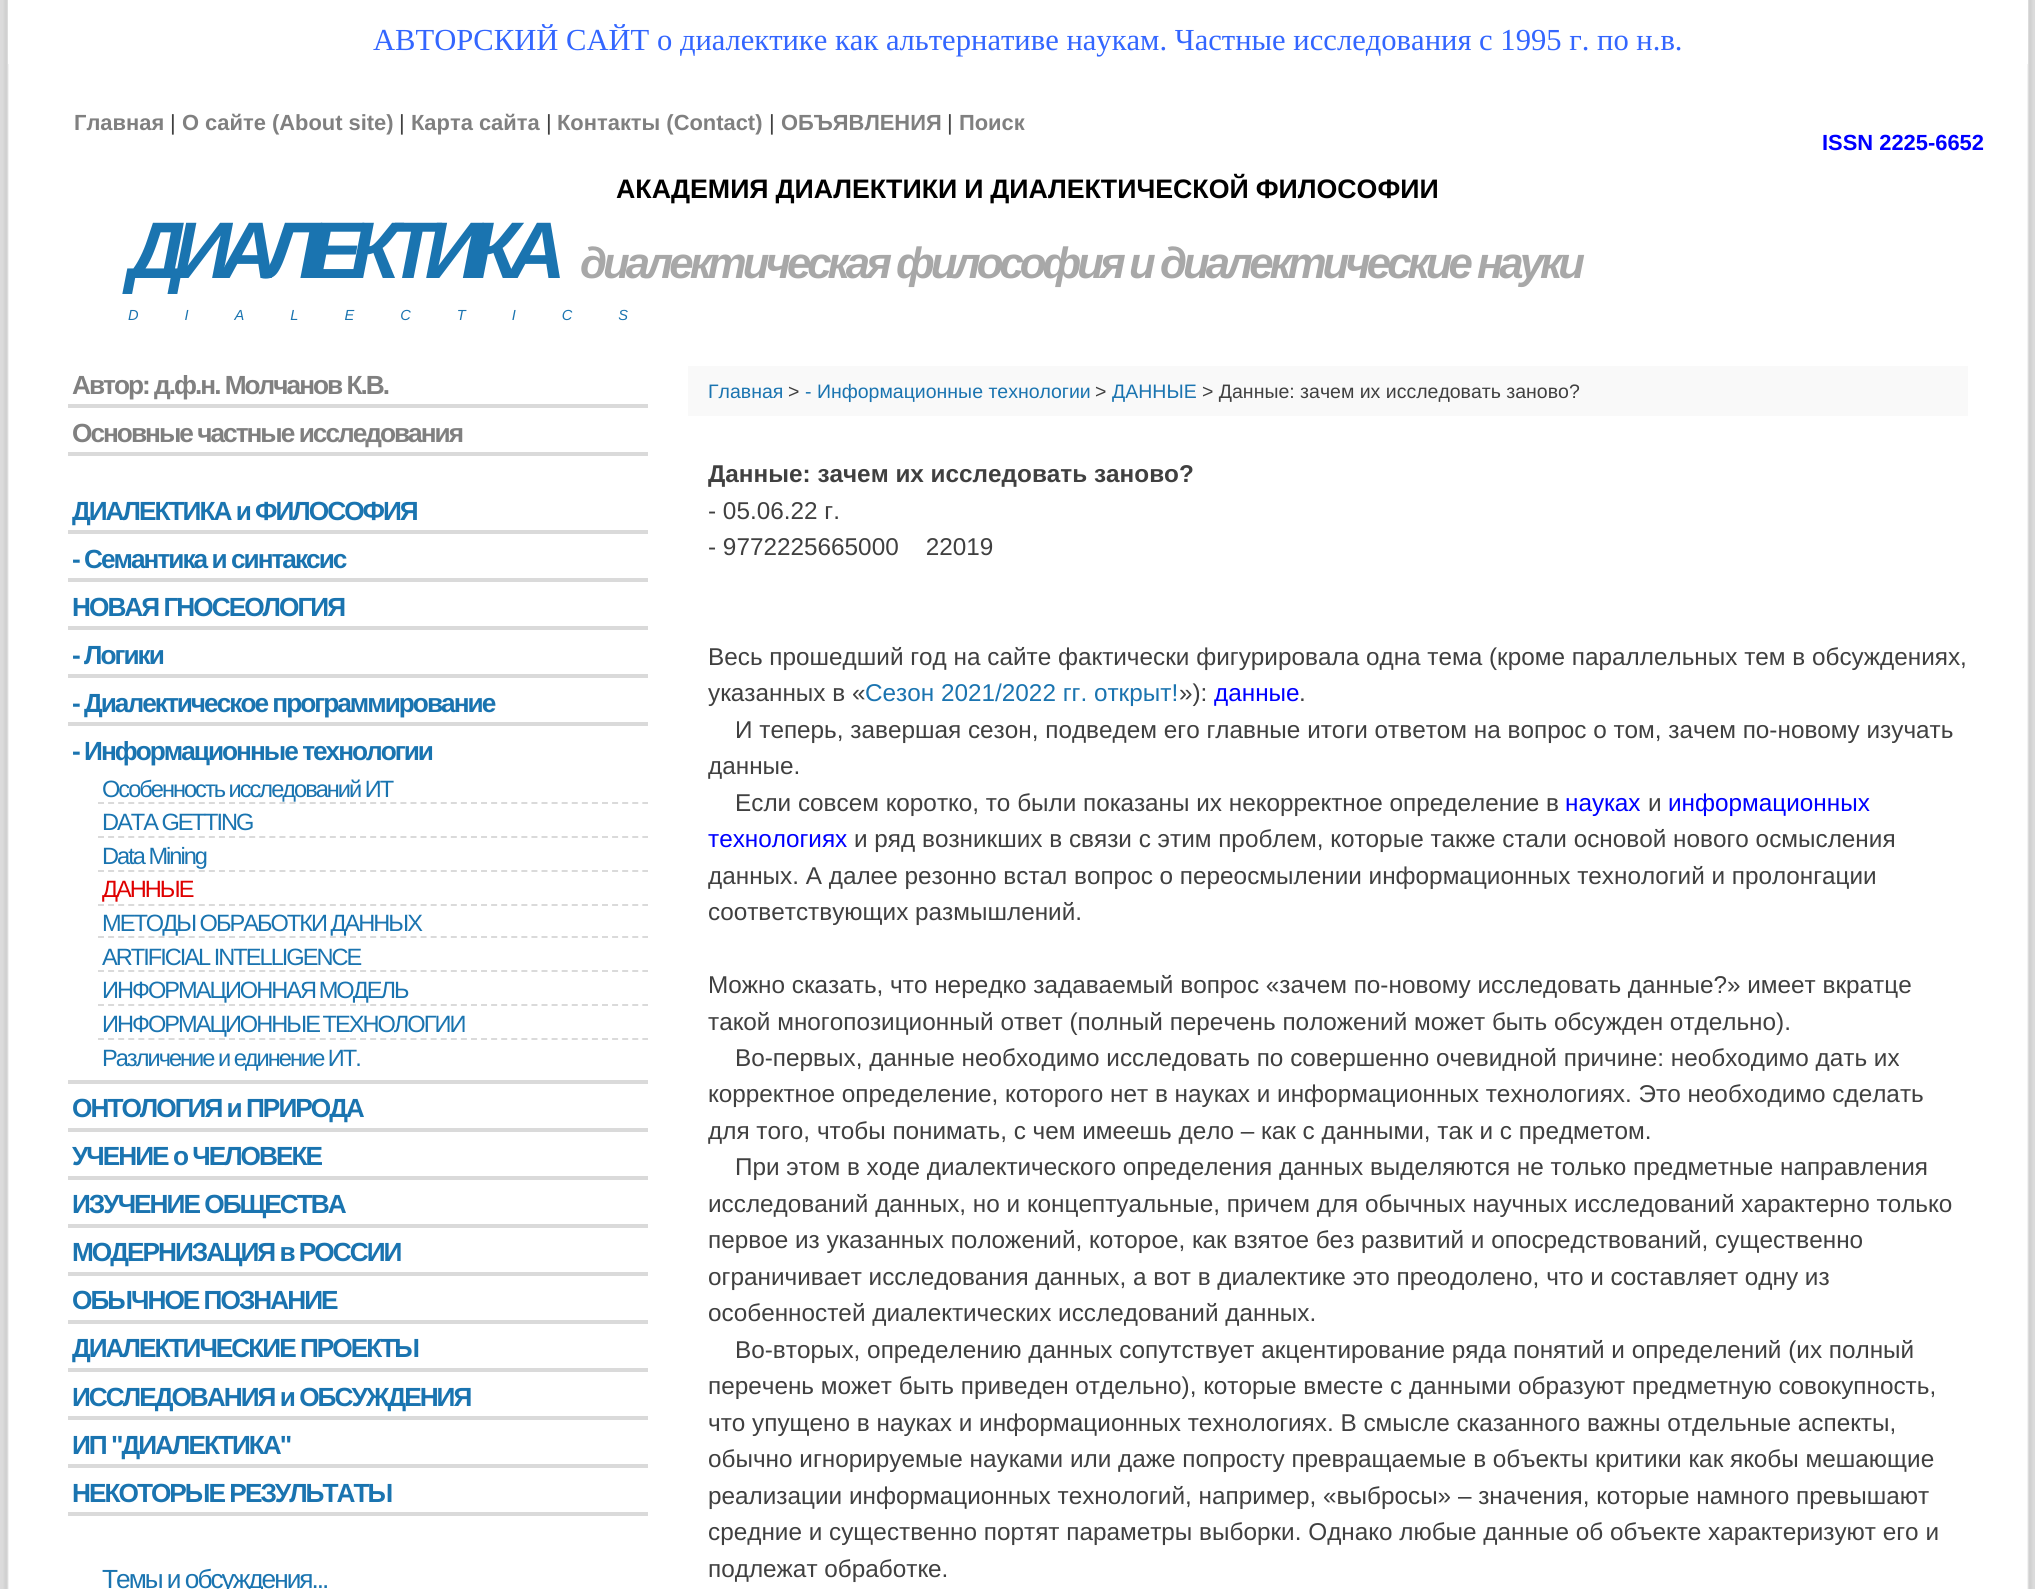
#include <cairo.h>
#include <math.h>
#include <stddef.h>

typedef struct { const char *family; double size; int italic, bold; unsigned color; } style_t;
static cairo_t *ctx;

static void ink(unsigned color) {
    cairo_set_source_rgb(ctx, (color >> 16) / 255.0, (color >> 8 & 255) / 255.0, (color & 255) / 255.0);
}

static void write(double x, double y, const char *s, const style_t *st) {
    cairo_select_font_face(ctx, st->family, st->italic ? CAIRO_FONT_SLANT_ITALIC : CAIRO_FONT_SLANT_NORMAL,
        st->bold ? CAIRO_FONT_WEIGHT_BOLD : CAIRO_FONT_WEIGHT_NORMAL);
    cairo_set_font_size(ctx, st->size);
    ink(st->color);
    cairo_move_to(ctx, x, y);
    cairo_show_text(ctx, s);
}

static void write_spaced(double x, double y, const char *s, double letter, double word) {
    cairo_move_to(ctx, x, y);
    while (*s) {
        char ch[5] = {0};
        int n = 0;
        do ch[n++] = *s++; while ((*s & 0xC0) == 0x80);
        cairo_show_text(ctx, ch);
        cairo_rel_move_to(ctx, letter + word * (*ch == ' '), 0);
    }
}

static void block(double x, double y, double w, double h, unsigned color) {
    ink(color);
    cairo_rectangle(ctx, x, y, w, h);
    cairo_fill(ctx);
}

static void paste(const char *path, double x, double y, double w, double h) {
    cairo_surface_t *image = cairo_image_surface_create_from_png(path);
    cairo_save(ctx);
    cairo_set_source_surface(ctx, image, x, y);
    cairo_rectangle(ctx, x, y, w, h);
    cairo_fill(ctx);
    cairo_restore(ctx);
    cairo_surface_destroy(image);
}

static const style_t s1 = {"Liberation Serif", 30.6, 0, 0, 0x3366ff};
static const style_t s2 = {"Liberation Sans", 21.9, 0, 1, 0x808080};
static const style_t s3 = {"Liberation Sans", 21.9, 0, 0, 0x404040};
static const style_t s4 = {"Liberation Sans", 21.9, 0, 1, 0x0000ff};
static const style_t s5 = {"Liberation Sans", 19.5, 0, 0, 0x1a74b0};
static const style_t s6 = {"Liberation Sans", 19.5, 0, 0, 0x404040};
static const style_t s7 = {"Liberation Sans", 24.32, 0, 1, 0x404040};
static const style_t s8 = {"Liberation Sans", 24.32, 0, 0, 0x404040};
static const style_t s9 = {"Liberation Sans", 24.32, 0, 0, 0x1a74b0};
static const style_t s10 = {"Liberation Sans", 24.32, 0, 0, 0x0000ff};

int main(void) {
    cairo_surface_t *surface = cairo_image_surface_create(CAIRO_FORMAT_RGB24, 2035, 1589);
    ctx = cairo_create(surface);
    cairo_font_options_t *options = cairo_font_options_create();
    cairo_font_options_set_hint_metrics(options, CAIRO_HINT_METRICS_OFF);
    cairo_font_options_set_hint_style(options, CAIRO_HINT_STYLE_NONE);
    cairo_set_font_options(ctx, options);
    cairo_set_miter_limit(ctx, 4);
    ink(0xffffff);
    cairo_paint(ctx);
    paste("pic1.png", 0, 0, 2035, 1589);
    block(8, 0, 2020, 64, 0xffffff);
    write(373, 50, "АВТОРСКИЙ САЙТ о диалектике как альтернативе наукам. Частные исследования с 1995 г. по н.в.", &s1);
    write(74, 130, "Главная", &s2);
    write(170, 130, "|", &s3);
    write(182, 130, "О сайте (About site)", &s2);
    write(399, 130, "|", &s3);
    write(411, 130, "Карта сайта", &s2);
    write(546, 130, "|", &s3);
    write(557, 130, "Контакты (Contact)", &s2);
    write(769, 130, "|", &s3);
    write(781, 130, "ОБЪЯВЛЕНИЯ", &s2);
    write(947, 130, "|", &s3);
    write(959, 130, "Поиск", &s2);
    write(1822, 150, "ISSN 2225-6652", &s4);
    cairo_set_font_size(ctx, 26.75);
    ink(0x000000);
    write_spaced(616, 198, "АКАДЕМИЯ ДИАЛЕКТИКИ И ДИАЛЕКТИЧЕСКОЙ ФИЛОСОФИИ", 0, -0.5);
    cairo_select_font_face(ctx, "Liberation Sans", CAIRO_FONT_SLANT_ITALIC, CAIRO_FONT_WEIGHT_BOLD);
    cairo_set_font_size(ctx, 80.25);
    ink(0x1a74b0);
    write_spaced(128, 278, "ДИАЛЕКТИКА", -12, 0);
    cairo_set_font_size(ctx, 43.75);
    ink(0xa8a8a8);
    write_spaced(580, 278, "диалектическая философия", -4, 0);
    write_spaced(1129, 278, "и диалектические науки", -4, 0);
    cairo_select_font_face(ctx, "Liberation Sans", CAIRO_FONT_SLANT_ITALIC, CAIRO_FONT_WEIGHT_NORMAL);
    cairo_set_font_size(ctx, 14.6);
    ink(0x1a74b0);
    write_spaced(128, 320, "DIALECTICS", 46, 0);
    block(68, 404, 580, 4, 0xdadada);
    cairo_select_font_face(ctx, "Liberation Sans", CAIRO_FONT_SLANT_NORMAL, CAIRO_FONT_WEIGHT_BOLD);
    cairo_set_font_size(ctx, 26.25);
    ink(0x808080);
    write_spaced(72, 394, "Автор: д.ф.н. Молчанов К.В.", -2, 0);
    block(68, 452, 580, 4, 0xdadada);
    ink(0x808080);
    write_spaced(72, 442, "Основные частные исследования", -2, 0);
    block(68, 530, 580, 4, 0xdadada);
    ink(0x1a74b0);
    write_spaced(72, 520, "ДИАЛЕКТИКА и ФИЛОСОФИЯ", -2, 0);
    block(68, 578, 580, 4, 0xdadada);
    ink(0x1a74b0);
    write_spaced(72, 568, "- Семантика и синтаксис", -2, 0);
    block(68, 626, 580, 4, 0xdadada);
    ink(0x1a74b0);
    write_spaced(72, 616, "НОВАЯ ГНОСЕОЛОГИЯ", -2, 0);
    block(68, 674, 580, 4, 0xdadada);
    ink(0x1a74b0);
    write_spaced(72, 664, "- Логики", -2, 0);
    block(68, 722, 580, 4, 0xdadada);
    ink(0x1a74b0);
    write_spaced(72, 712, "- Диалектическое программирование", -2, 0);
    block(68, 1080, 580, 4, 0xdadada);
    ink(0x1a74b0);
    write_spaced(72, 760, "- Информационные технологии", -2, 0);
    cairo_new_path(ctx);
    cairo_move_to(ctx, 98, 803);
    cairo_line_to(ctx, 648, 803);
    ink(0xdadada);
    cairo_set_dash(ctx, (double[]){6, 4.08}, 2, 0);
    cairo_stroke(ctx);
    cairo_select_font_face(ctx, "Liberation Sans", CAIRO_FONT_SLANT_NORMAL, CAIRO_FONT_WEIGHT_NORMAL);
    cairo_set_font_size(ctx, 23.6);
    ink(0x1a74b0);
    write_spaced(102, 797, "Особенность исследований ИТ", -2, 0);
    cairo_new_path(ctx);
    cairo_move_to(ctx, 98, 837);
    cairo_line_to(ctx, 648, 837);
    ink(0xdadada);
    cairo_stroke(ctx);
    ink(0x1a74b0);
    write_spaced(102, 830, "DATA GETTING", -2, 0);
    cairo_new_path(ctx);
    cairo_move_to(ctx, 98, 871);
    cairo_line_to(ctx, 648, 871);
    ink(0xdadada);
    cairo_stroke(ctx);
    ink(0x1a74b0);
    write_spaced(102, 864, "Data Mining", -2, 0);
    cairo_new_path(ctx);
    cairo_move_to(ctx, 98, 905);
    cairo_line_to(ctx, 648, 905);
    ink(0xdadada);
    cairo_stroke(ctx);
    ink(0xdf0000);
    write_spaced(102, 897, "ДАННЫЕ", -2, 0);
    cairo_new_path(ctx);
    cairo_move_to(ctx, 98, 937);
    cairo_line_to(ctx, 648, 937);
    ink(0xdadada);
    cairo_stroke(ctx);
    ink(0x1a74b0);
    write_spaced(102, 931, "МЕТОДЫ ОБРАБОТКИ ДАННЫХ", -2, 0);
    cairo_new_path(ctx);
    cairo_move_to(ctx, 98, 971);
    cairo_line_to(ctx, 648, 971);
    ink(0xdadada);
    cairo_stroke(ctx);
    ink(0x1a74b0);
    write_spaced(102, 965, "ARTIFICIAL INTELLIGENCE", -2, 0);
    cairo_new_path(ctx);
    cairo_move_to(ctx, 98, 1005);
    cairo_line_to(ctx, 648, 1005);
    ink(0xdadada);
    cairo_stroke(ctx);
    ink(0x1a74b0);
    write_spaced(102, 998, "ИНФОРМАЦИОННАЯ МОДЕЛЬ", -2, -1);
    cairo_new_path(ctx);
    cairo_move_to(ctx, 98, 1039);
    cairo_line_to(ctx, 648, 1039);
    ink(0xdadada);
    cairo_stroke(ctx);
    ink(0x1a74b0);
    write_spaced(102, 1032, "ИНФОРМАЦИОННЫЕ ТЕХНОЛОГИИ", -2, -1);
    write_spaced(102, 1066, "Различение и единение ИТ.", -2, 0);
    block(68, 1128, 580, 4, 0xdadada);
    cairo_select_font_face(ctx, "Liberation Sans", CAIRO_FONT_SLANT_NORMAL, CAIRO_FONT_WEIGHT_BOLD);
    cairo_set_font_size(ctx, 26.25);
    ink(0x1a74b0);
    write_spaced(72, 1117, "ОНТОЛОГИЯ и ПРИРОДА", -2, 0);
    block(68, 1176, 580, 4, 0xdadada);
    ink(0x1a74b0);
    write_spaced(72, 1165, "УЧЕНИЕ о ЧЕЛОВЕКЕ", -2, 0);
    block(68, 1224, 580, 4, 0xdadada);
    ink(0x1a74b0);
    write_spaced(72, 1213, "ИЗУЧЕНИЕ ОБЩЕСТВА", -2, 0);
    block(68, 1272, 580, 4, 0xdadada);
    ink(0x1a74b0);
    write_spaced(72, 1261, "МОДЕРНИЗАЦИЯ в РОССИИ", -2, 0);
    block(68, 1320, 580, 4, 0xdadada);
    ink(0x1a74b0);
    write_spaced(72, 1309, "ОБЫЧНОЕ ПОЗНАНИЕ", -2, 0);
    block(68, 1368, 580, 4, 0xdadada);
    ink(0x1a74b0);
    write_spaced(72, 1357, "ДИАЛЕКТИЧЕСКИЕ ПРОЕКТЫ", -2, 0);
    block(68, 1416, 580, 4, 0xdadada);
    ink(0x1a74b0);
    write_spaced(72, 1406, "ИССЛЕДОВАНИЯ и ОБСУЖДЕНИЯ", -2, 0);
    block(68, 1464, 580, 4, 0xdadada);
    ink(0x1a74b0);
    write_spaced(72, 1454, "ИП \"ДИАЛЕКТИКА\"", -2, 0);
    block(68, 1512, 580, 4, 0xdadada);
    ink(0x1a74b0);
    write_spaced(72, 1502, "НЕКОТОРЫЕ РЕЗУЛЬТАТЫ", -2, 0);
    cairo_select_font_face(ctx, "Liberation Sans", CAIRO_FONT_SLANT_NORMAL, CAIRO_FONT_WEIGHT_NORMAL);
    write_spaced(102, 1588, "Темы и обсуждения...", -2, 0);
    block(688, 366, 1280, 50, 0xf9f9f9);
    write(708, 398, "Главная", &s5);
    write(788, 398, ">", &s6);
    write(805, 398, "- Информационные технологии", &s5);
    write(1095, 398, ">", &s6);
    write(1112, 398, "ДАННЫЕ", &s5);
    write(1202, 398, "> Данные: зачем их исследовать заново?", &s6);
    write(708, 482, "Данные: зачем их исследовать заново?", &s7);
    write(708, 519, "- 05.06.22 г.", &s8);
    write(708, 555, "- 9772225665000    22019", &s8);
    write(708, 665, "Весь прошедший год на сайте фактически фигурировала одна тема (кроме параллельных тем в обсуждениях,", &s8);
    write(708, 701, "указанных в «", &s8);
    write(865, 701, "Сезон 2021/2022 гг. открыт!", &s9);
    write(1179, 701, "»):", &s8);
    write(1214, 701, "данные", &s10);
    write(1299, 701, ".", &s8);
    write(735, 738, "И теперь, завершая сезон, подведем его главные итоги ответом на вопрос о том, зачем по-новому изучать", &s8);
    write(708, 774, "данные.", &s8);
    write(735, 811, "Если совсем коротко, то были показаны их некорректное определение в", &s8);
    write(1565, 811, "науках", &s10);
    write(1648, 811, "и", &s8);
    write(1668, 811, "информационных", &s10);
    write(708, 847, "технологиях", &s10);
    write(854, 847, "и ряд возникших в связи с этим проблем, которые также стали основой нового осмысления", &s8);
    write(708, 884, "данных. А далее резонно встал вопрос о переосмылении информационных технологий и пролонгации", &s8);
    write(708, 920, "соответствующих размышлений.", &s8);
    write(708, 993, "Можно сказать, что нередко задаваемый вопрос «зачем по-новому исследовать данные?» имеет вкратце", &s8);
    write(708, 1030, "такой многопозиционный ответ (полный перечень положений может быть обсужден отдельно).", &s8);
    write(735, 1066, "Во-первых, данные необходимо исследовать по совершенно очевидной причине: необходимо дать их", &s8);
    write(708, 1102, "корректное определение, которого нет в науках и информационных технологиях. Это необходимо сделать", &s8);
    write(708, 1139, "для того, чтобы понимать, с чем имеешь дело – как с данными, так и с предметом.", &s8);
    write(735, 1175, "При этом в ходе диалектического определения данных выделяются не только предметные направления", &s8);
    write(708, 1212, "исследований данных, но и концептуальные, причем для обычных научных исследований характерно только", &s8);
    write(708, 1248, "первое из указанных положений, которое, как взятое без развитий и опосредствований, существенно", &s8);
    write(708, 1285, "ограничивает исследования данных, а вот в диалектике это преодолено, что и составляет одну из", &s8);
    write(708, 1321, "особенностей диалектических исследований данных.", &s8);
    write(735, 1358, "Во-вторых, определению данных сопутствует акцентирование ряда понятий и определений (их полный", &s8);
    write(708, 1394, "перечень может быть приведен отдельно), которые вместе с данными образуют предметную совокупность,", &s8);
    write(708, 1431, "что упущено в науках и информационных технологиях. В смысле сказанного важны отдельные аспекты,", &s8);
    write(708, 1467, "обычно игнорируемые науками или даже попросту превращаемые в объекты критики как якобы мешающие", &s8);
    write(708, 1504, "реализации информационных технологий, например, «выбросы» – значения, которые намного превышают", &s8);
    write(708, 1540, "средние и существенно портят параметры выборки. Однако любые данные об объекте характеризуют его и", &s8);
    write(708, 1577, "подлежат обработке.", &s8);
    cairo_surface_write_to_png(surface, "screenshot.png");
    cairo_font_options_destroy(options);
    cairo_destroy(ctx);
    cairo_surface_destroy(surface);
    return 0;
}
